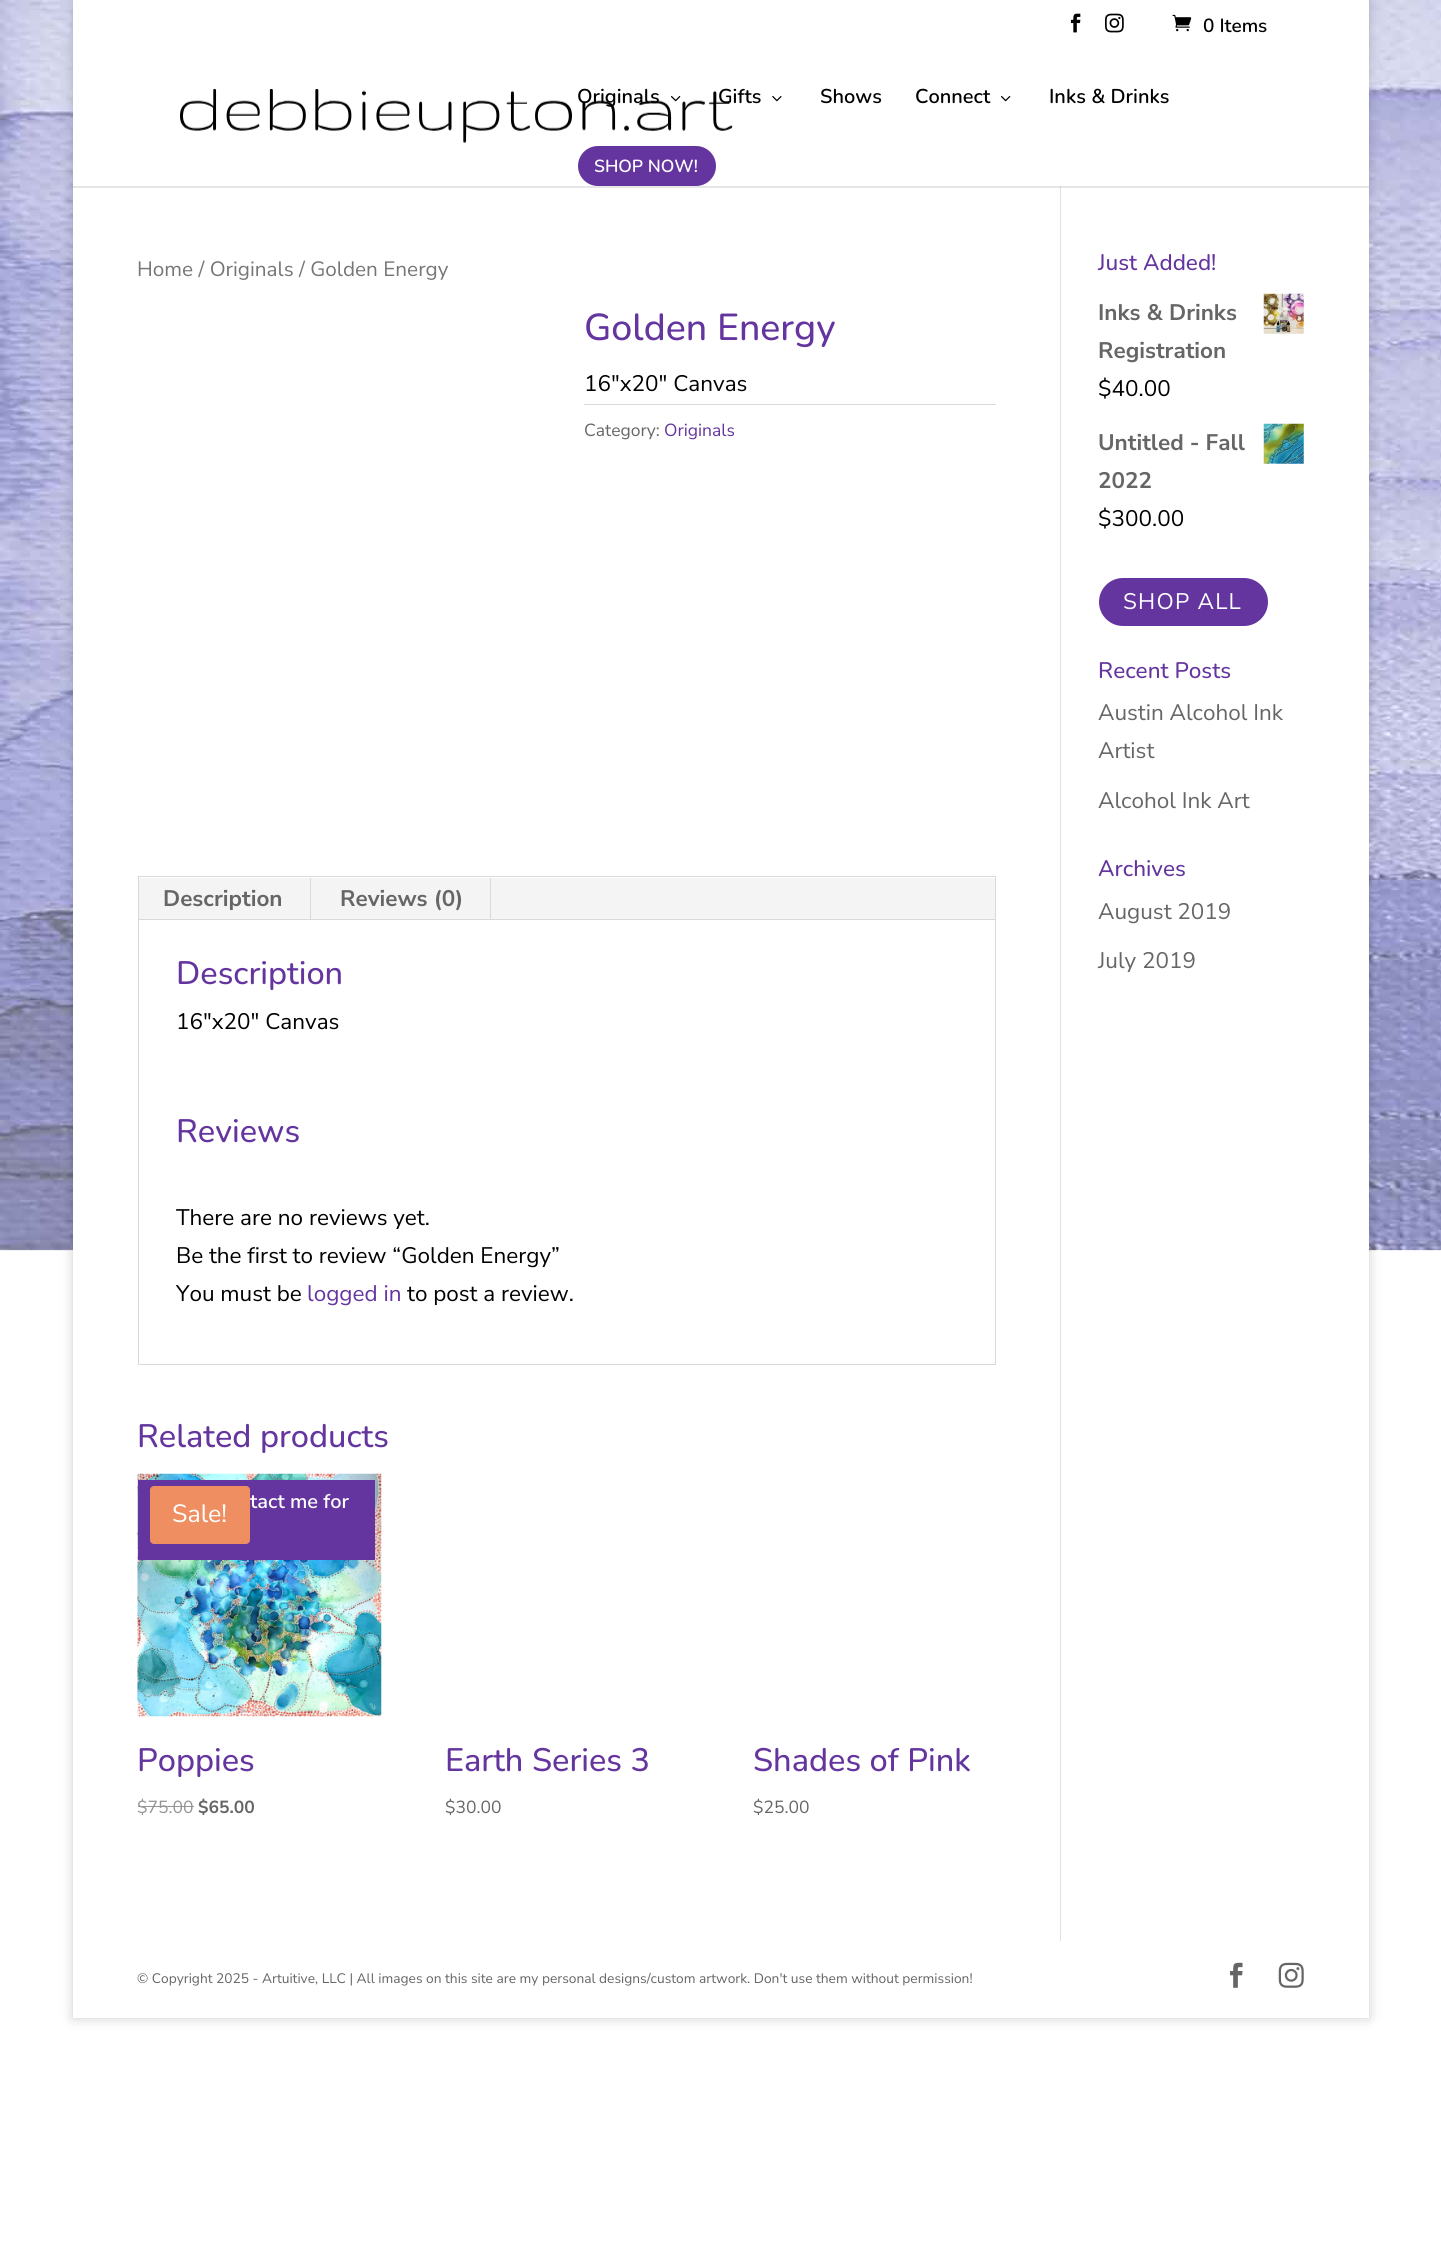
#include <cairo.h>
#include <math.h>
#include <stddef.h>

typedef struct { const char *family; double size; int italic, bold; unsigned color; } style_t;
static cairo_t *ctx;

static void ink(unsigned color) {
    cairo_set_source_rgb(ctx, (color >> 16) / 255.0, (color >> 8 & 255) / 255.0, (color & 255) / 255.0);
}

static void write(double x, double y, const char *s, const style_t *st) {
    cairo_select_font_face(ctx, st->family, st->italic ? CAIRO_FONT_SLANT_ITALIC : CAIRO_FONT_SLANT_NORMAL,
        st->bold ? CAIRO_FONT_WEIGHT_BOLD : CAIRO_FONT_WEIGHT_NORMAL);
    cairo_set_font_size(ctx, st->size);
    ink(st->color);
    cairo_move_to(ctx, x, y);
    cairo_show_text(ctx, s);
}

static void write_spaced(double x, double y, const char *s, double letter, double word) {
    cairo_move_to(ctx, x, y);
    while (*s) {
        char ch[5] = {0};
        int n = 0;
        do ch[n++] = *s++; while ((*s & 0xC0) == 0x80);
        cairo_show_text(ctx, ch);
        cairo_rel_move_to(ctx, letter + word * (*ch == ' '), 0);
    }
}

static void block(double x, double y, double w, double h, unsigned color) {
    ink(color);
    cairo_rectangle(ctx, x, y, w, h);
    cairo_fill(ctx);
}

static void round_path(double x, double y, double w, double h, double r) {
    cairo_new_sub_path(ctx);
    cairo_arc(ctx, x + w - r, y + h - r, r, 0, M_PI / 2);
    cairo_arc(ctx, x + r, y + h - r, r, M_PI / 2, M_PI);
    cairo_arc(ctx, x + r, y + r, r, M_PI, 1.5 * M_PI);
    cairo_arc(ctx, x + w - r, y + r, r, 1.5 * M_PI, 2 * M_PI);
    cairo_close_path(ctx);
}

static void blur_box(double x, double y, double w, double h, double r, double blur, double alpha) {
    cairo_push_group_with_content(ctx, CAIRO_CONTENT_ALPHA);
    cairo_set_operator(ctx, CAIRO_OPERATOR_SOURCE);
    for (int i = 15; i >= -15 && fmin(w, h) + blur * i / 3 > 0; i -= 2) {
        double e = blur * i / 6;
        cairo_set_source_rgba(ctx, 0, 0, 0, alpha * erfc((i - 1) / 8.5) / 2);
        round_path(x - e, y - e, w + 2 * e, h + 2 * e, fmax(0, fmin(r + e + blur * .6, fmin(w, h) / 2 + e)));
        cairo_fill(ctx);
    }
    cairo_pattern_t *soft = cairo_pop_group(ctx);
    cairo_mask(ctx, soft);
    cairo_pattern_destroy(soft);
}

static void paste(const char *path, double x, double y, double w, double h) {
    cairo_surface_t *image = cairo_image_surface_create_from_png(path);
    cairo_save(ctx);
    cairo_set_source_surface(ctx, image, x, y);
    cairo_rectangle(ctx, x, y, w, h);
    cairo_fill(ctx);
    cairo_restore(ctx);
    cairo_surface_destroy(image);
}

static const style_t s1 = {"Nunito SemiBold", 19, 0, 0, 0x000000};
static const style_t s2 = {"Nunito SemiBold", 20, 0, 0, 0x000000};
static const style_t s3 = {"Nunito SemiBold", 17.5, 0, 0, 0xffffff};
static const style_t s4 = {"Nunito Sans", 20.75, 0, 0, 0x767676};
static const style_t s5 = {"Nunito Medium", 37.5, 0, 0, 0x64359e};
static const style_t s6 = {"Nunito Sans", 22.5, 0, 0, 0x000000};
static const style_t s7 = {"Nunito Sans", 17.5, 0, 0, 0x666666};
static const style_t s8 = {"Nunito Sans", 17.5, 0, 0, 0x64359e};
static const style_t s9 = {"Nunito Sans", 22.5, 0, 1, 0x666666};
static const style_t s10 = {"Nunito Medium", 32.5, 0, 0, 0x64359e};
static const style_t s11 = {"Nunito Sans", 22.5, 0, 0, 0x64359e};
static const style_t s12 = {"Nunito Sans SemiBold", 20, 0, 0, 0xffffff};
static const style_t s13 = {"Nunito Sans", 25, 0, 0, 0xffffff};
static const style_t s14 = {"Nunito Sans", 17.5, 0, 0, 0x949494};
static const style_t s15 = {"Nunito Sans", 17.5, 0, 1, 0x666666};
static const style_t s16 = {"Nunito Medium", 22.5, 0, 0, 0x64359e};
static const style_t s17 = {"Nunito Sans", 22.5, 0, 0, 0x666666};
static const style_t s18 = {"Nunito Sans", 13.75, 0, 0, 0x666666};

int main(void) {
    cairo_surface_t *surface = cairo_image_surface_create(CAIRO_FORMAT_RGB24, 1441, 2242);
    ctx = cairo_create(surface);
    cairo_font_options_t *options = cairo_font_options_create();
    cairo_font_options_set_hint_metrics(options, CAIRO_HINT_METRICS_OFF);
    cairo_font_options_set_hint_style(options, CAIRO_HINT_STYLE_NONE);
    cairo_set_font_options(ctx, options);
    cairo_set_miter_limit(ctx, 4);
    ink(0xffffff);
    cairo_paint(ctx);
    paste("pic1.png", 0, 0, 1441, 1251);
    ink(0x000000);
    blur_box(73, 0, 1296, 2018, 0, 6, 0.2);
    block(73, 186, 1296, 1832, 0xffffff);
    block(1060, 179, 1, 1762, 0xe2e2e2);
    block(73, 0, 1296, 186, 0xffffff);
    paste("pic2.png", 1070, 13, 11, 20);
    paste("pic3.png", 1105, 13, 19, 20);
    paste("pic4.png", 1172, 14, 20, 18);
    write(1203, 32, "0 Items", &s1);
    cairo_set_source_rgba(ctx, 0, 0, 0, 0.1);
    cairo_new_path(ctx);
    cairo_move_to(ctx, 73, 186);
    cairo_line_to(ctx, 73, 188);
    cairo_line_to(ctx, 1369, 188);
    cairo_line_to(ctx, 1369, 50);
    cairo_line_to(ctx, 1369, 186);
    cairo_close_path(ctx);
    cairo_fill(ctx);
    paste("pic5.png", 180, 89, 553, 54);
    write(577, 103, "Originals", &s2);
    paste("pic6.png", 671, 96, 10, 6);
    write(718, 103, "Gifts", &s2);
    paste("pic7.png", 772, 96, 10, 6);
    write(820, 103, "Shows", &s2);
    write(915, 103, "Connect", &s2);
    paste("pic6.png", 1001, 96, 10, 6);
    write(1049, 103, "Inks & Drinks", &s2);
    ink(0x64359e);
    round_path(579.5, 147.5, 135, 37, 18.5);
    cairo_fill_preserve(ctx);
    cairo_set_line_width(ctx, 3);
    cairo_stroke(ctx);
    write(594, 172, "SHOP NOW!", &s3);
    write(137, 276, "Home / Originals / Golden Energy", &s4);
    write(584, 340, "Golden Energy", &s5);
    write(584, 391, "16″x20″ Canvas", &s6);
    block(584, 404, 412, 1, 0xdadada);
    write(584, 436, "Category:", &s7);
    write(664, 436, "Originals", &s8);
    cairo_rectangle(ctx, 138.5, 876.5, 857, 488);
    ink(0xd9d9d9);
    cairo_set_line_width(ctx, 1);
    cairo_stroke(ctx);
    block(139, 878, 856, 41, 0xf4f4f4);
    block(310, 878, 1, 42, 0xd9d9d9);
    write(163, 906, "Description", &s9);
    block(490, 878, 1, 42, 0xd9d9d9);
    write(340, 906, "Reviews (0)", &s9);
    block(139, 919, 856, 1, 0xd9d9d9);
    write(176, 984, "Description", &s10);
    write(176, 1029, "16″x20″ Canvas", &s6);
    write(176, 1142, "Reviews", &s10);
    write(176, 1225, "There are no reviews yet.", &s6);
    write(176, 1263, "Be the first to review “Golden Energy”", &s6);
    write(176, 1301, "You must be", &s6);
    write(307, 1301, "logged in", &s11);
    write(407, 1301, "to post a review.", &s6);
    write(137, 1447, "Related products", &s10);
    paste("pic8.png", 137, 1473, 245, 244);
    block(138, 1480, 237, 80, 0x64359e);
    write(250, 1508, "tact me for", &s12);
    ink(0xef8f61);
    round_path(150, 1486, 100, 58, 4);
    cairo_fill(ctx);
    write(172, 1522, "Sale!", &s13);
    write(137, 1771, "Poppies", &s10);
    write(137, 1813, "$75.00", &s14);
    block(138, 1806, 56, 1, 0x949494);
    write(198, 1813, "$65.00", &s15);
    write(445, 1771, "Earth Series 3", &s10);
    write(445, 1813, "$30.00", &s7);
    write(753, 1771, "Shades of Pink", &s10);
    write(753, 1813, "$25.00", &s7);
    write(1098, 270, "Just Added!", &s16);
    write(1098, 320, "Inks & Drinks", &s9);
    paste("pic9.png", 1263, 293, 41, 41);
    write(1098, 358, "Registration", &s9);
    write(1098, 396, "$40.00", &s6);
    write(1098, 450, "Untitled - Fall", &s9);
    paste("pic10.png", 1263, 423, 41, 41);
    write(1098, 488, "2022", &s9);
    write(1098, 526, "$300.00", &s6);
    ink(0x64359e);
    round_path(1100.5, 579.5, 166, 45, 22.5);
    cairo_fill_preserve(ctx);
    cairo_set_line_width(ctx, 3);
    cairo_stroke(ctx);
    ink(0xffffff);
    write_spaced(1123, 609, "SHOP ALL", 1.25, 0);
    write(1098, 678, "Recent Posts", &s16);
    write(1098, 720, "Austin Alcohol Ink", &s17);
    write(1098, 758, "Artist", &s17);
    write(1098, 808, "Alcohol Ink Art", &s17);
    write(1098, 876, "Archives", &s16);
    write(1098, 919, "August 2019", &s17);
    write(1098, 968, "July 2019", &s17);
    write(137, 1983, "© Copyright 2025 - Artuitive, LLC | All images on this site are my personal designs/custom artwork. Don't use them without permission!", &s18);
    paste("pic11.png", 1230, 1962, 13, 26);
    paste("pic12.png", 1278, 1962, 26, 26);
    cairo_surface_write_to_png(surface, "screenshot.png");
    cairo_font_options_destroy(options);
    cairo_destroy(ctx);
    cairo_surface_destroy(surface);
    return 0;
}
